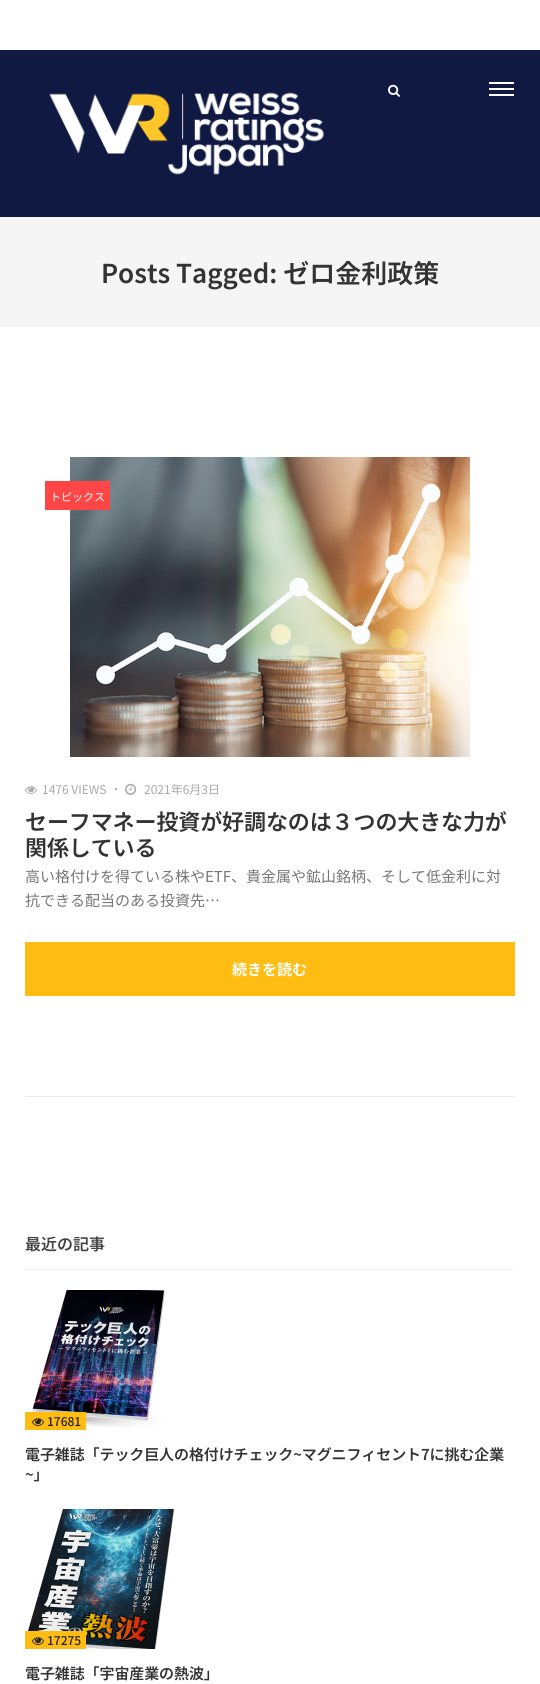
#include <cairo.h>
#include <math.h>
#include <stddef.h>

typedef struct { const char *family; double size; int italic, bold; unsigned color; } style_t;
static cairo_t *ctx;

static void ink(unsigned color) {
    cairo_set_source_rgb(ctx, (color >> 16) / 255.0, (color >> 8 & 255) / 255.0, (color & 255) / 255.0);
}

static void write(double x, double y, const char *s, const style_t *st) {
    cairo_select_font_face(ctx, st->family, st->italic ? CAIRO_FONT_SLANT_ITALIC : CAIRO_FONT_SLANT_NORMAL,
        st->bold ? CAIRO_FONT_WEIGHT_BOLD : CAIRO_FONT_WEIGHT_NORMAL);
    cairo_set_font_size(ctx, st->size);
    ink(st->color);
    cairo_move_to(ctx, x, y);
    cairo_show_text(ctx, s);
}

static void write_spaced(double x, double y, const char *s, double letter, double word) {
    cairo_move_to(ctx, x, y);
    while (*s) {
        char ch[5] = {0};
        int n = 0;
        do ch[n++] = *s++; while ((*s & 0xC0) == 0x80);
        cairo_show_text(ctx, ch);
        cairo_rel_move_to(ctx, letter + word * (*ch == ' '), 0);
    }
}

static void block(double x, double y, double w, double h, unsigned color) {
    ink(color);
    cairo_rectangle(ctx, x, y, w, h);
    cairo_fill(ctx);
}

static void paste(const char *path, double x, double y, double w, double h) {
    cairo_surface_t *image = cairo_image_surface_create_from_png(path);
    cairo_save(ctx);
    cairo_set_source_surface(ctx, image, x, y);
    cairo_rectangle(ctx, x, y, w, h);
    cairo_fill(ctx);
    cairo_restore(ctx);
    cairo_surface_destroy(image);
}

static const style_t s1 = {"Noto Sans JP SemiBold", 26, 0, 0, 0x333333};
static const style_t s2 = {"Noto Sans JP", 11, 0, 0, 0xffffff};
static const style_t s3 = {"Noto Sans JP", 12, 0, 0, 0xaaaaaa};
static const style_t s4 = {"Noto Sans JP", 15, 0, 0, 0x777777};
static const style_t s5 = {"Noto Sans JP", 15, 0, 1, 0xffffff};
static const style_t s6 = {"Noto Sans JP SemiBold", 16, 0, 0, 0x444444};
static const style_t s7 = {"Noto Sans JP Medium", 12, 0, 0, 0x232323};

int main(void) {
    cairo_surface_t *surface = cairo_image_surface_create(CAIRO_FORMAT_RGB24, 540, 1684);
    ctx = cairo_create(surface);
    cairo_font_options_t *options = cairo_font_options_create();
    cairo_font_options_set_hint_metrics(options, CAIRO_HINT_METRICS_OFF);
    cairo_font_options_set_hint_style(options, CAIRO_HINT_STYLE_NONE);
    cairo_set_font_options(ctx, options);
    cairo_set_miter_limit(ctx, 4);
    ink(0xffffff);
    cairo_paint(ctx);
    block(0, 50, 540, 167, 0x0f1941);
    block(0, 217, 540, 1, 0xf3f3f3);
    paste("pic1.png", 388, 84, 12, 13);
    block(489, 82, 25, 2, 0xffffff);
    block(489, 88, 25, 2, 0xffffff);
    block(489, 94, 25, 2, 0xffffff);
    paste("pic2.png", 49, 92, 275, 83);
    block(0, 218, 540, 109, 0xf5f5f5);
    write(101, 283, "Posts Tagged: ゼロ金利政策", &s1);
    block(25, 1096, 490, 1, 0xebebeb);
    paste("pic3.png", 70, 457, 400, 300);
    block(45, 481, 65, 29, 0xff4646);
    write(50, 501, "トピックス", &s2);
    paste("pic4.png", 25, 786, 12, 8);
    write(42, 794, "1476 VIEWS", &s3);
    block(115, 788, 2, 2, 0xaaaaaa);
    paste("pic5.png", 125, 783, 12, 12);
    write(144, 794, "2021年6月3日", &s3);
    cairo_select_font_face(ctx, "Noto Sans JP SemiBold", CAIRO_FONT_SLANT_NORMAL, CAIRO_FONT_WEIGHT_NORMAL);
    cairo_set_font_size(ctx, 22);
    ink(0x333333);
    write_spaced(25, 830, "セーフマネー投資が好調なのは３つの大きな力が", -0.1, 0);
    write_spaced(25, 856, "関係している", -0.1, 0);
    write(25, 882, "高い格付けを得ている株やETF、貴金属や鉱山銘柄、そして低金利に対", &s4);
    write(25, 906, "抗できる配当のある投資先…", &s4);
    block(25, 942, 490, 54, 0xffbc13);
    write(232, 975, "続きを読む", &s5);
    block(25, 1269, 490, 1, 0xf3f3f3);
    write(25, 1250, "最近の記事", &s6);
    paste("pic6.png", 32, 1290, 133, 137);
    block(25, 1412, 61, 18, 0xffbc13);
    paste("pic7.png", 32, 1418, 12, 8);
    write(47, 1426, "17681", &s7);
    cairo_select_font_face(ctx, "Noto Sans JP SemiBold", CAIRO_FONT_SLANT_NORMAL, CAIRO_FONT_WEIGHT_NORMAL);
    cairo_set_font_size(ctx, 15);
    ink(0x333333);
    write_spaced(25, 1460, "電子雑誌「テック巨人の格付けチェック~マグニフィセント7に挑む企業", -0.1, 0);
    write_spaced(25, 1480, "~」", -0.1, 0);
    paste("pic8.png", 28, 1509, 146, 140);
    block(25, 1631, 61, 18, 0xffbc13);
    paste("pic7.png", 32, 1637, 12, 8);
    write(47, 1645, "17275", &s7);
    cairo_select_font_face(ctx, "Noto Sans JP SemiBold", CAIRO_FONT_SLANT_NORMAL, CAIRO_FONT_WEIGHT_NORMAL);
    cairo_set_font_size(ctx, 15);
    ink(0x333333);
    write_spaced(25, 1679, "電子雑誌「宇宙産業の熱波」", -0.1, 0);
    cairo_surface_write_to_png(surface, "screenshot.png");
    cairo_font_options_destroy(options);
    cairo_destroy(ctx);
    cairo_surface_destroy(surface);
    return 0;
}
